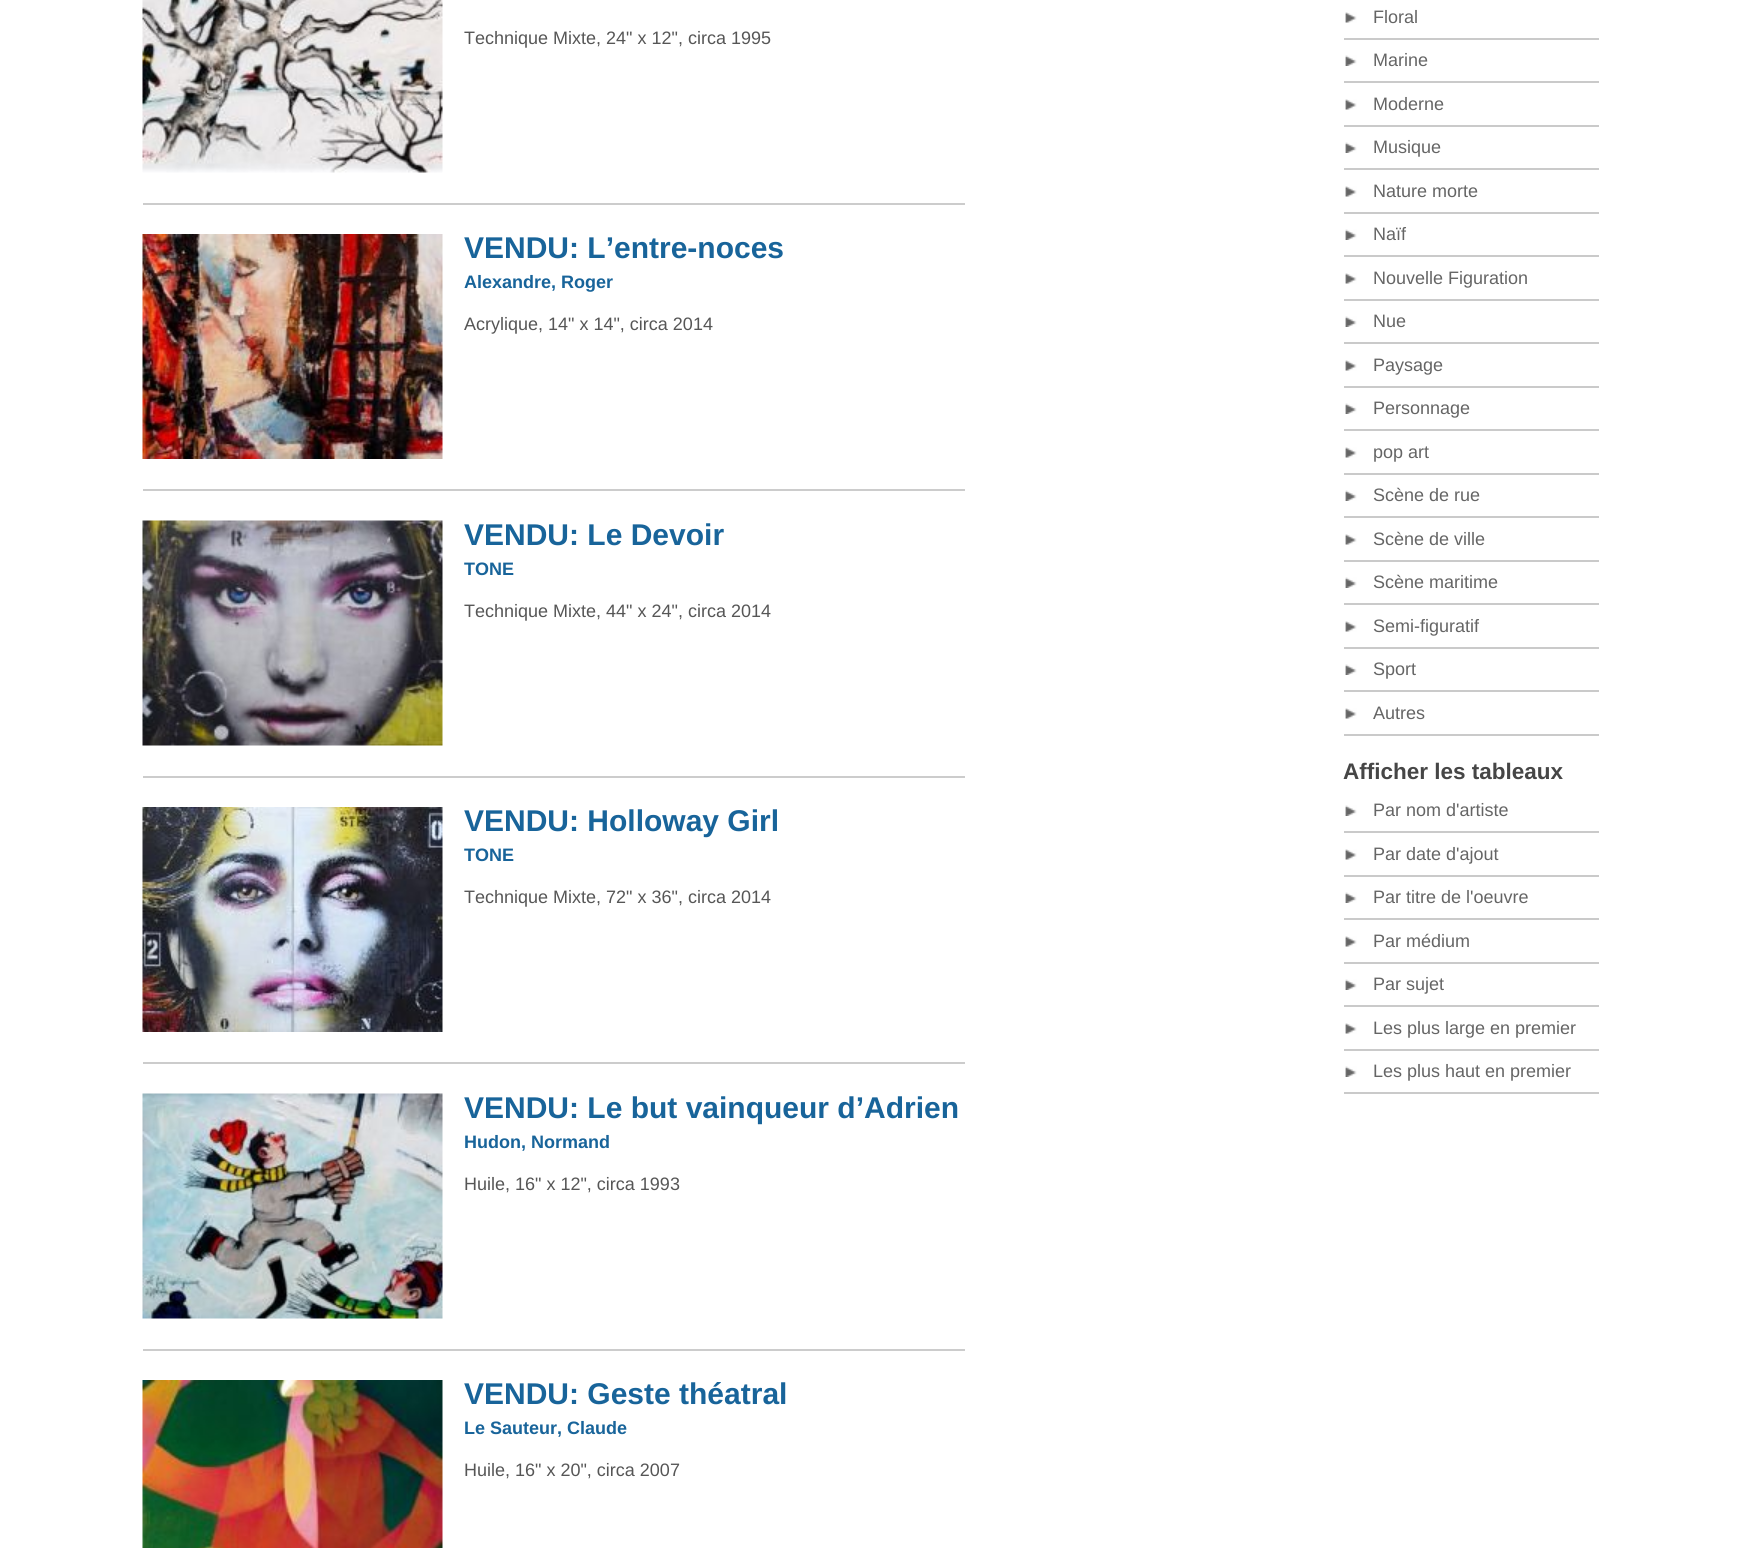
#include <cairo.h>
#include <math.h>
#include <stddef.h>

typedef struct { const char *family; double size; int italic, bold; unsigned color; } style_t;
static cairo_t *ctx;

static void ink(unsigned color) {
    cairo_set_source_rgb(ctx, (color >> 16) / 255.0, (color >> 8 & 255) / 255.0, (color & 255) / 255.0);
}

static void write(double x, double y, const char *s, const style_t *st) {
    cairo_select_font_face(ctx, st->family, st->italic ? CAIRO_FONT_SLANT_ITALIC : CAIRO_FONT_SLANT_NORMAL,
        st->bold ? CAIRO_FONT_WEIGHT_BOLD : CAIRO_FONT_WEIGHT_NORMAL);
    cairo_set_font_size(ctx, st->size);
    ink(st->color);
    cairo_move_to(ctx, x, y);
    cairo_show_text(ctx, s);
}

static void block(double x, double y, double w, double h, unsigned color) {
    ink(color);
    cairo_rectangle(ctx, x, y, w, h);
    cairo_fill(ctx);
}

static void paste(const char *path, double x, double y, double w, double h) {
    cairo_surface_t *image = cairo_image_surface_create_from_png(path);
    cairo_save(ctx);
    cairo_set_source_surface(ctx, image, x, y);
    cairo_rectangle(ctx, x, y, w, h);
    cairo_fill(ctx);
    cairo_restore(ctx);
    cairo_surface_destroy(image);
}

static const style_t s1 = {"Liberation Sans", 18, 0, 0, 0x565656};
static const style_t s2 = {"Liberation Sans", 30, 0, 1, 0x18649a};
static const style_t s3 = {"Liberation Sans", 18, 0, 1, 0x18649a};
static const style_t s4 = {"Liberation Sans", 18, 0, 0, 0x656565};
static const style_t s5 = {"Liberation Sans", 22.5, 0, 1, 0x464646};

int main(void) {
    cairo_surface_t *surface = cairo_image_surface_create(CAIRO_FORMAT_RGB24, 1738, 1548);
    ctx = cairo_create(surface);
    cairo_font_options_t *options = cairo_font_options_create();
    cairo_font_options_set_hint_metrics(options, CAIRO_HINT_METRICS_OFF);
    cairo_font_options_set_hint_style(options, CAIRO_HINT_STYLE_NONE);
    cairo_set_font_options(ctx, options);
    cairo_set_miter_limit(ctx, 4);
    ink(0xffffff);
    cairo_paint(ctx);
    block(143, 203, 822, 2, 0xcccccc);
    paste("pic1.png", 142, 0, 301, 173);
    write(464, 44, "Technique Mixte, 24\" x 12\", circa 1995", &s1);
    block(143, 489, 822, 2, 0xcccccc);
    paste("pic2.png", 142, 234, 301, 225);
    write(464, 258, "VENDU: L’entre-noces", &s2);
    write(464, 288, "Alexandre, Roger", &s3);
    write(464, 330, "Acrylique, 14\" x 14\", circa 2014", &s1);
    block(143, 776, 822, 2, 0xcccccc);
    paste("pic3.png", 142, 520, 301, 226);
    write(464, 545, "VENDU: Le Devoir", &s2);
    write(464, 575, "TONE", &s3);
    write(464, 617, "Technique Mixte, 44\" x 24\", circa 2014", &s1);
    block(143, 1062, 822, 2, 0xcccccc);
    paste("pic4.png", 142, 807, 301, 225);
    write(464, 831, "VENDU: Holloway Girl", &s2);
    write(464, 861, "TONE", &s3);
    write(464, 903, "Technique Mixte, 72\" x 36\", circa 2014", &s1);
    block(143, 1349, 822, 2, 0xcccccc);
    paste("pic5.png", 142, 1093, 301, 226);
    write(464, 1118, "VENDU: Le but vainqueur d’Adrien", &s2);
    write(464, 1148, "Hudon, Normand", &s3);
    write(464, 1190, "Huile, 16\" x 12\", circa 1993", &s1);
    paste("pic6.png", 142, 1380, 301, 168);
    write(464, 1404, "VENDU: Geste théatral", &s2);
    write(464, 1434, "Le Sauteur, Claude", &s3);
    write(464, 1476, "Huile, 16\" x 20\", circa 2007", &s1);
    paste("pic7.png", 1345, 12, 12, 11);
    block(1344, 38, 255, 2, 0xcacaca);
    write(1373, 23, "Floral", &s4);
    paste("pic8.png", 1345, 55, 12, 11);
    block(1344, 81, 255, 2, 0xcacaca);
    write(1373, 66, "Marine", &s4);
    paste("pic7.png", 1345, 99, 12, 11);
    block(1344, 125, 255, 2, 0xcacaca);
    write(1373, 110, "Moderne", &s4);
    paste("pic8.png", 1345, 142, 12, 11);
    block(1344, 168, 255, 2, 0xcacaca);
    write(1373, 153, "Musique", &s4);
    paste("pic7.png", 1345, 186, 12, 11);
    block(1344, 212, 255, 2, 0xcacaca);
    write(1373, 197, "Nature morte", &s4);
    paste("pic8.png", 1345, 229, 12, 11);
    block(1344, 255, 255, 2, 0xcacaca);
    write(1373, 240, "Naïf", &s4);
    paste("pic7.png", 1345, 273, 12, 11);
    block(1344, 299, 255, 2, 0xcacaca);
    write(1373, 284, "Nouvelle Figuration", &s4);
    paste("pic8.png", 1345, 316, 12, 11);
    block(1344, 342, 255, 2, 0xcacaca);
    write(1373, 327, "Nue", &s4);
    paste("pic7.png", 1345, 360, 12, 11);
    block(1344, 386, 255, 2, 0xcacaca);
    write(1373, 371, "Paysage", &s4);
    paste("pic8.png", 1345, 403, 12, 11);
    block(1344, 429, 255, 2, 0xcacaca);
    write(1373, 414, "Personnage", &s4);
    paste("pic7.png", 1345, 447, 12, 11);
    block(1344, 473, 255, 2, 0xcacaca);
    write(1373, 458, "pop art", &s4);
    paste("pic8.png", 1345, 490, 12, 11);
    block(1344, 516, 255, 2, 0xcacaca);
    write(1373, 501, "Scène de rue", &s4);
    paste("pic7.png", 1345, 534, 12, 11);
    block(1344, 560, 255, 2, 0xcacaca);
    write(1373, 545, "Scène de ville", &s4);
    paste("pic8.png", 1345, 577, 12, 11);
    block(1344, 603, 255, 2, 0xcacaca);
    write(1373, 588, "Scène maritime", &s4);
    paste("pic7.png", 1345, 621, 12, 11);
    block(1344, 647, 255, 2, 0xcacaca);
    write(1373, 632, "Semi-figuratif", &s4);
    paste("pic8.png", 1345, 664, 12, 11);
    block(1344, 690, 255, 2, 0xcacaca);
    write(1373, 675, "Sport", &s4);
    paste("pic7.png", 1345, 708, 12, 11);
    block(1344, 734, 255, 2, 0xcacaca);
    write(1373, 719, "Autres", &s4);
    write(1343, 779, "Afficher les tableaux", &s5);
    paste("pic8.png", 1345, 805, 12, 11);
    block(1344, 831, 255, 2, 0xcacaca);
    write(1373, 816, "Par nom d'artiste", &s4);
    paste("pic7.png", 1345, 849, 12, 11);
    block(1344, 875, 255, 2, 0xcacaca);
    write(1373, 860, "Par date d'ajout", &s4);
    paste("pic8.png", 1345, 892, 12, 11);
    block(1344, 918, 255, 2, 0xcacaca);
    write(1373, 903, "Par titre de l'oeuvre", &s4);
    paste("pic7.png", 1345, 936, 12, 11);
    block(1344, 962, 255, 2, 0xcacaca);
    write(1373, 947, "Par médium", &s4);
    paste("pic8.png", 1345, 979, 12, 11);
    block(1344, 1005, 255, 2, 0xcacaca);
    write(1373, 990, "Par sujet", &s4);
    paste("pic7.png", 1345, 1023, 12, 11);
    block(1344, 1049, 255, 2, 0xcacaca);
    write(1373, 1034, "Les plus large en premier", &s4);
    paste("pic8.png", 1345, 1066, 12, 11);
    block(1344, 1092, 255, 2, 0xcacaca);
    write(1373, 1077, "Les plus haut en premier", &s4);
    cairo_surface_write_to_png(surface, "screenshot.png");
    cairo_font_options_destroy(options);
    cairo_destroy(ctx);
    cairo_surface_destroy(surface);
    return 0;
}
